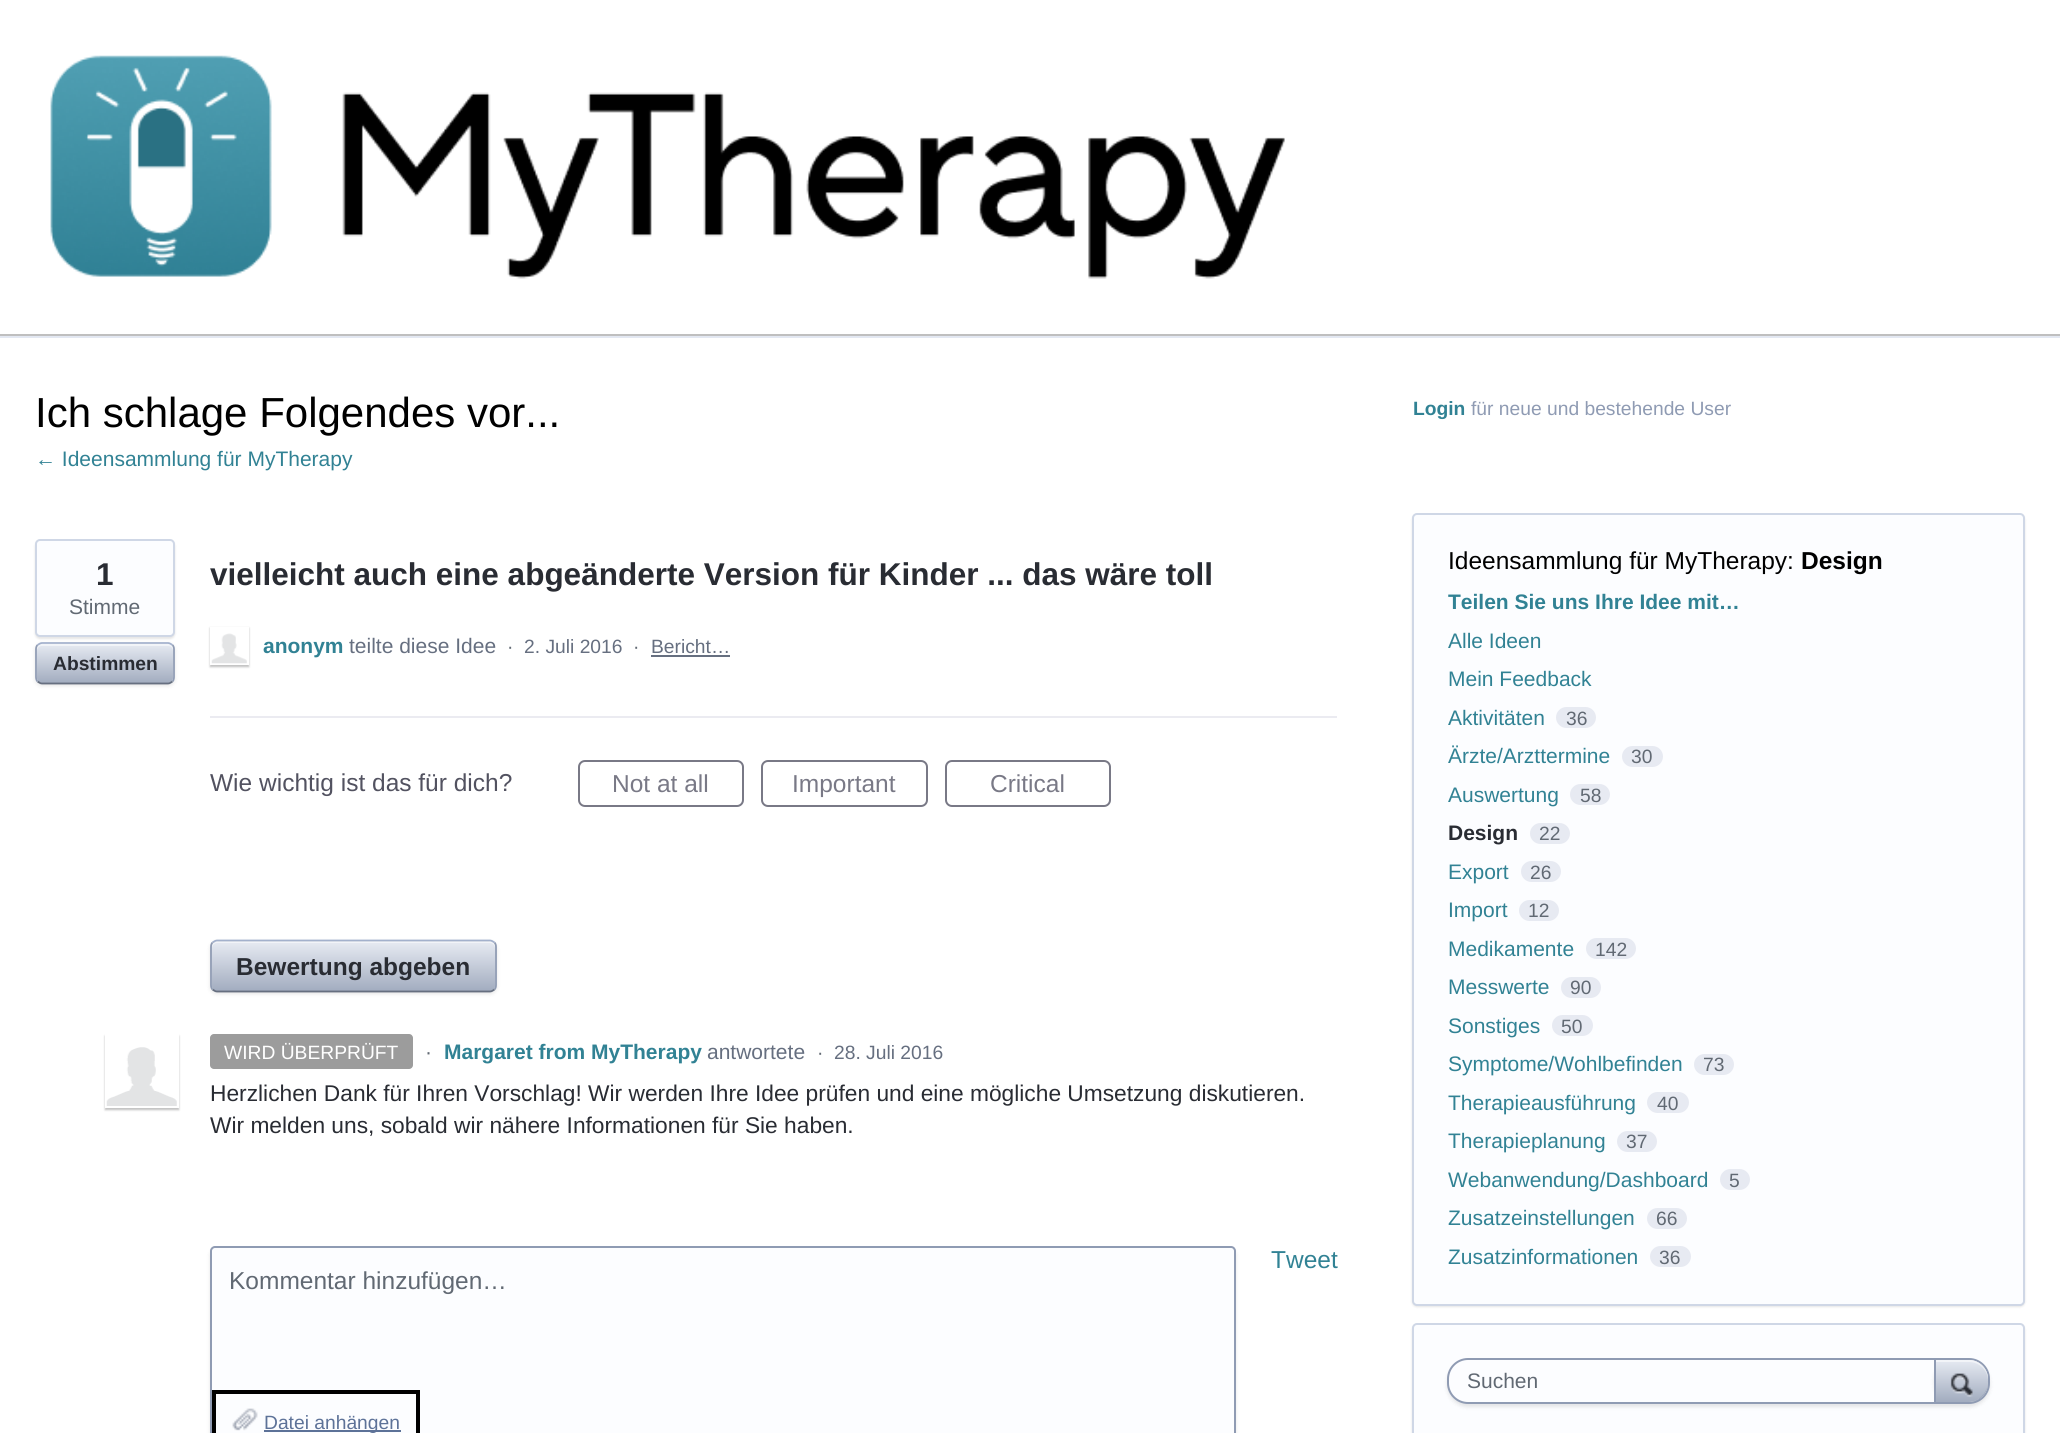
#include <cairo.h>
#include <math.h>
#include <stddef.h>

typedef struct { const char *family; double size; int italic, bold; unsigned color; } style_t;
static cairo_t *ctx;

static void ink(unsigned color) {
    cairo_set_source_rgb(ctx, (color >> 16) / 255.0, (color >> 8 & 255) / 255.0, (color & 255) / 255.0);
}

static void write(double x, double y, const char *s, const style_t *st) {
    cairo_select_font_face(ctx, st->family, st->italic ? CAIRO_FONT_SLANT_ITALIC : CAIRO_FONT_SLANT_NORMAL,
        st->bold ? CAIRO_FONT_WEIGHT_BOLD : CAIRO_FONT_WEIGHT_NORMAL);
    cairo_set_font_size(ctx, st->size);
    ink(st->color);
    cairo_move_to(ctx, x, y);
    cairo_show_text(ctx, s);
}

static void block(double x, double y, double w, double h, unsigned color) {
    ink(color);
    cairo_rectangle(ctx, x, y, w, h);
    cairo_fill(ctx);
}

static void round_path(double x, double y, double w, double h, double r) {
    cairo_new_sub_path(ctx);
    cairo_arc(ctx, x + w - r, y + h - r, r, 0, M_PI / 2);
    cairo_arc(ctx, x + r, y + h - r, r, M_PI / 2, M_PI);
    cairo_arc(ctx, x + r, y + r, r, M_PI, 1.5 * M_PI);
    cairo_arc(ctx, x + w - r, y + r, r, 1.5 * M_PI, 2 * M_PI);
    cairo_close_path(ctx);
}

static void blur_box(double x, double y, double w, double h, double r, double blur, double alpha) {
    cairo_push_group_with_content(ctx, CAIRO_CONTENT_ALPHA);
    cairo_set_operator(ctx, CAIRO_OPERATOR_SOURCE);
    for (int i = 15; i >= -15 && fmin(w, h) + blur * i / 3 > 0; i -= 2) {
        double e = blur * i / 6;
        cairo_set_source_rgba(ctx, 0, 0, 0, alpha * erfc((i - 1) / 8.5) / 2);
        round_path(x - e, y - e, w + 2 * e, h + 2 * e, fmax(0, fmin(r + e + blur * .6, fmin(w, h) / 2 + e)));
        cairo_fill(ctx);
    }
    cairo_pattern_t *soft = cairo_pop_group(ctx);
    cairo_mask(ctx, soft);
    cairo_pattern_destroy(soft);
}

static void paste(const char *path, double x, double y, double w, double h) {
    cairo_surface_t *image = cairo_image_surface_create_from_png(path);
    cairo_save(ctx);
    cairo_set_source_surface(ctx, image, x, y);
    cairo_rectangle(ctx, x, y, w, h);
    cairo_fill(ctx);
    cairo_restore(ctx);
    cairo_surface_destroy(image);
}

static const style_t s1 = {"Liberation Sans", 42, 0, 0, 0x000000};
static const style_t s2 = {"Liberation Sans", 21, 0, 0, 0x318294};
static const style_t s3 = {"Liberation Sans", 31.5, 0, 1, 0x292c33};
static const style_t s4 = {"Liberation Sans", 21, 0, 0, 0x616973};
static const style_t s5 = {"Liberation Sans", 19.25, 0, 1, 0x292c33};
static const style_t s6 = {"Liberation Sans", 21, 0, 1, 0x318294};
static const style_t s7 = {"Liberation Sans", 21, 0, 0, 0x666f80};
static const style_t s8 = {"Liberation Sans", 19.25, 0, 0, 0x616973};
static const style_t s9 = {"Liberation Sans", 19.25, 0, 0, 0x666f80};
static const style_t s10 = {"Liberation Sans", 24.5, 0, 0, 0x525260};
static const style_t s11 = {"Liberation Sans", 24.5, 0, 0, 0x797986};
static const style_t s12 = {"Liberation Sans", 24.5, 0, 1, 0x292c33};
static const style_t s13 = {"Liberation Sans", 19.25, 0, 0, 0xffffff};
static const style_t s14 = {"Liberation Sans", 22.75, 0, 0, 0x292c33};
static const style_t s15 = {"Liberation Sans", 24.5, 0, 0, 0x318294};
static const style_t s16 = {"Liberation Sans", 24.5, 0, 0, 0x616973};
static const style_t s17 = {"Liberation Sans", 19.25, 0, 0, 0x5d7298};
static const style_t s18 = {"Liberation Sans", 19.25, 0, 1, 0x318294};
static const style_t s19 = {"Liberation Sans", 19.25, 0, 0, 0x8f9bb3};
static const style_t s20 = {"Liberation Sans", 24.5, 0, 0, 0x000000};
static const style_t s21 = {"Liberation Sans", 24.5, 0, 1, 0x000000};
static const style_t s22 = {"Liberation Sans", 21, 0, 1, 0x292c33};

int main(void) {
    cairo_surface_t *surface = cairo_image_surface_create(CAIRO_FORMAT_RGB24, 2060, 1433);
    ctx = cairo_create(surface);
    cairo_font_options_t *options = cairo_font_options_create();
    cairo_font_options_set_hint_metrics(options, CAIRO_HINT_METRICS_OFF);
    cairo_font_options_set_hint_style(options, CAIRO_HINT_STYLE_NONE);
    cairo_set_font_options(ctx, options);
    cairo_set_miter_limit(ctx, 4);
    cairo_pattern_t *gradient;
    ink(0xffffff);
    cairo_paint(ctx);
    block(0, 334, 2060, 2, 0xbfbfbf);
    paste("pic1.png", 50, 55, 1235, 224);
    block(0, 336, 2060, 2, 0xe3e8f2);
    write(35, 427, "Ich schlage Folgendes vor...", &s1);
    write(35, 466, "← Ideensammlung für MyTherapy", &s2);
    ink(0x000000);
    blur_box(35, 541, 140, 98, 5, 1, 0.1);
    ink(0xfcfdff);
    round_path(36, 540, 138, 96, 4);
    cairo_fill_preserve(ctx);
    ink(0xcfd7e6);
    cairo_stroke(ctx);
    write(96, 585, "1", &s3);
    write(69, 614, "Stimme", &s4);
    cairo_save(ctx);
    cairo_set_fill_rule(ctx, CAIRO_FILL_RULE_EVEN_ODD);
    cairo_new_path(ctx);
    cairo_move_to(ctx, 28, 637);
    cairo_line_to(ctx, 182, 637);
    cairo_line_to(ctx, 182, 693);
    cairo_line_to(ctx, 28, 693);
    cairo_close_path(ctx);
    cairo_move_to(ctx, 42, 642);
    cairo_line_to(ctx, 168, 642);
    cairo_curve_to(ctx, 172, 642, 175, 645, 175, 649);
    cairo_line_to(ctx, 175, 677);
    cairo_curve_to(ctx, 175, 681, 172, 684, 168, 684);
    cairo_line_to(ctx, 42, 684);
    cairo_curve_to(ctx, 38, 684, 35, 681, 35, 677);
    cairo_line_to(ctx, 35, 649);
    cairo_curve_to(ctx, 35, 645, 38, 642, 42, 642);
    cairo_close_path(ctx);
    cairo_clip(ctx);
    ink(0x000000);
    blur_box(35, 644, 140, 42, 7, 2, 0.1);
    cairo_restore(ctx);
    gradient = cairo_pattern_create_linear(37, 644, 37, 683);
    cairo_pattern_add_color_stop_rgba(gradient, 0, 0.902, 0.918, 0.949, 1);
    cairo_pattern_add_color_stop_rgba(gradient, 1, 0.635, 0.675, 0.749, 1);
    cairo_set_source(ctx, gradient);
    cairo_pattern_destroy(gradient);
    round_path(37, 644, 136, 39, 5);
    cairo_fill(ctx);
    cairo_set_source_rgba(ctx, 1, 1, 1, 0.5);
    cairo_new_path(ctx);
    cairo_move_to(ctx, 42, 646);
    cairo_line_to(ctx, 168, 646);
    cairo_curve_to(ctx, 171, 646, 173, 648, 173, 651);
    cairo_line_to(ctx, 173, 649);
    cairo_curve_to(ctx, 173, 646, 171, 644, 168, 644);
    cairo_line_to(ctx, 42, 644);
    cairo_curve_to(ctx, 39, 644, 37, 646, 37, 649);
    cairo_line_to(ctx, 37, 651);
    cairo_curve_to(ctx, 37, 648, 39, 646, 42, 646);
    cairo_close_path(ctx);
    cairo_fill(ctx);
    cairo_new_path(ctx);
    cairo_move_to(ctx, 37.5, 645);
    cairo_curve_to(ctx, 39, 644, 40.5, 643, 42, 643);
    cairo_line_to(ctx, 168, 643);
    cairo_curve_to(ctx, 169.5, 643, 171, 644, 172.5, 645);
    ink(0xa3b1cc);
    cairo_set_line_width(ctx, 1.8);
    cairo_stroke(ctx);
    cairo_new_path(ctx);
    cairo_move_to(ctx, 172.5, 645);
    cairo_curve_to(ctx, 173.5, 646, 174, 647.5, 174, 649);
    cairo_line_to(ctx, 174, 677);
    cairo_curve_to(ctx, 174, 679, 173.5, 680.5, 172.5, 681.5);
    ink(0x8f9bb3);
    cairo_stroke(ctx);
    cairo_new_path(ctx);
    cairo_move_to(ctx, 172.5, 681.5);
    cairo_curve_to(ctx, 171, 682.5, 169.5, 683.5, 168, 683.5);
    cairo_line_to(ctx, 42, 683.5);
    cairo_curve_to(ctx, 40.5, 683.5, 39, 682.5, 37.5, 681.5);
    ink(0x666f80);
    cairo_stroke(ctx);
    cairo_new_path(ctx);
    cairo_move_to(ctx, 37.5, 681.5);
    cairo_curve_to(ctx, 36.5, 680.5, 36, 679, 36, 677);
    cairo_line_to(ctx, 36, 649);
    cairo_curve_to(ctx, 36, 647.5, 36.5, 646, 37.5, 645);
    ink(0x8f9bb3);
    cairo_stroke(ctx);
    write(53, 670, "Abstimmen", &s5);
    write(210, 585, "vielleicht auch eine abgeänderte Version für Kinder ... das wäre toll", &s3);
    cairo_save(ctx);
    cairo_set_fill_rule(ctx, CAIRO_FILL_RULE_EVEN_ODD);
    cairo_new_path(ctx);
    cairo_move_to(ctx, 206, 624);
    cairo_line_to(ctx, 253, 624);
    cairo_line_to(ctx, 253, 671);
    cairo_line_to(ctx, 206, 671);
    cairo_close_path(ctx);
    cairo_move_to(ctx, 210, 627);
    cairo_line_to(ctx, 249, 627);
    cairo_line_to(ctx, 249, 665);
    cairo_line_to(ctx, 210, 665);
    cairo_close_path(ctx);
    cairo_clip(ctx);
    ink(0x000000);
    blur_box(210, 628, 39, 39, 0, 1, 0.25);
    cairo_restore(ctx);
    cairo_rectangle(ctx, 211, 628, 37, 36);
    ink(0xffffff);
    cairo_set_line_width(ctx, 2);
    cairo_stroke(ctx);
    paste("pic2.png", 211, 633, 36, 31);
    write(263, 653, "anonym", &s6);
    write(349, 653, "teilte diese Idee", &s7);
    write(507, 653, "·", &s8);
    write(524, 653, "2. Juli 2016", &s9);
    write(633, 653, "·", &s8);
    write(651, 653, "Bericht…", &s9);
    block(651, 655, 79, 2, 0x666f80);
    block(210, 716, 1127, 2, 0xebebf1);
    write(210, 791, "Wie wichtig ist das für dich?", &s10);
    round_path(579, 761, 164, 45, 6);
    ink(0x797986);
    cairo_stroke(ctx);
    write(612, 792, "Not at all", &s11);
    round_path(762, 761, 165, 45, 6);
    cairo_stroke(ctx);
    write(792, 792, "Important", &s11);
    round_path(946, 761, 164, 45, 6);
    cairo_stroke(ctx);
    write(990, 792, "Critical", &s11);
    ink(0x000000);
    blur_box(210, 942, 287, 52, 7, 2, 0.1);
    gradient = cairo_pattern_create_linear(212, 942, 212, 991);
    cairo_pattern_add_color_stop_rgba(gradient, 0, 0.902, 0.918, 0.949, 1);
    cairo_pattern_add_color_stop_rgba(gradient, 1, 0.635, 0.675, 0.749, 1);
    cairo_set_source(ctx, gradient);
    cairo_pattern_destroy(gradient);
    round_path(212, 942, 283, 49, 5);
    cairo_fill(ctx);
    cairo_set_source_rgba(ctx, 1, 1, 1, 0.5);
    cairo_new_path(ctx);
    cairo_move_to(ctx, 217, 943);
    cairo_line_to(ctx, 490, 943);
    cairo_curve_to(ctx, 493, 943, 495, 946, 495, 948);
    cairo_line_to(ctx, 495, 947);
    cairo_curve_to(ctx, 495, 944, 493, 942, 490, 942);
    cairo_line_to(ctx, 217, 942);
    cairo_curve_to(ctx, 214, 942, 212, 944, 212, 947);
    cairo_line_to(ctx, 212, 948);
    cairo_curve_to(ctx, 212, 946, 214, 943, 217, 943);
    cairo_close_path(ctx);
    cairo_fill(ctx);
    cairo_new_path(ctx);
    cairo_move_to(ctx, 212.5, 942.5);
    cairo_curve_to(ctx, 214, 941.5, 215.5, 940.5, 217, 940.5);
    cairo_line_to(ctx, 490, 940.5);
    cairo_curve_to(ctx, 491.5, 940.5, 493, 941.5, 494.5, 942.5);
    ink(0xa3b1cc);
    cairo_set_line_width(ctx, 1.8);
    cairo_stroke(ctx);
    cairo_new_path(ctx);
    cairo_move_to(ctx, 494.5, 942.5);
    cairo_curve_to(ctx, 495.5, 943.5, 496, 945, 496, 947);
    cairo_line_to(ctx, 496, 985);
    cairo_curve_to(ctx, 496, 987, 495.5, 988.5, 494.5, 989.5);
    ink(0x8f9bb3);
    cairo_stroke(ctx);
    cairo_new_path(ctx);
    cairo_move_to(ctx, 494.5, 989.5);
    cairo_curve_to(ctx, 493, 990.5, 491.5, 991.5, 490, 991.5);
    cairo_line_to(ctx, 217, 991.5);
    cairo_curve_to(ctx, 215.5, 991.5, 214, 990.5, 212.5, 989.5);
    ink(0x666f80);
    cairo_stroke(ctx);
    cairo_new_path(ctx);
    cairo_move_to(ctx, 212.5, 989.5);
    cairo_curve_to(ctx, 211.5, 988.5, 211, 987, 211, 985);
    cairo_line_to(ctx, 211, 947);
    cairo_curve_to(ctx, 211, 945, 211.5, 943.5, 212.5, 942.5);
    ink(0x8f9bb3);
    cairo_stroke(ctx);
    write(236, 975, "Bewertung abgeben", &s12);
    ink(0x9c9c9c);
    round_path(210, 1034, 203, 35, 4);
    cairo_fill(ctx);
    write(224, 1059, "WIRD ÜBERPRÜFT", &s13);
    write(425, 1059, "·", &s4);
    cairo_save(ctx);
    cairo_set_fill_rule(ctx, CAIRO_FILL_RULE_EVEN_ODD);
    cairo_new_path(ctx);
    cairo_move_to(ctx, 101, 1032);
    cairo_line_to(ctx, 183, 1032);
    cairo_line_to(ctx, 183, 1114);
    cairo_line_to(ctx, 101, 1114);
    cairo_close_path(ctx);
    cairo_move_to(ctx, 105, 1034);
    cairo_line_to(ctx, 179, 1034);
    cairo_line_to(ctx, 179, 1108);
    cairo_line_to(ctx, 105, 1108);
    cairo_close_path(ctx);
    cairo_clip(ctx);
    ink(0x000000);
    blur_box(105, 1036, 74, 74, 0, 1, 0.25);
    cairo_restore(ctx);
    cairo_rectangle(ctx, 106, 1035, 72, 72);
    ink(0xffffff);
    cairo_set_line_width(ctx, 2);
    cairo_stroke(ctx);
    paste("pic3.png", 106, 1047, 71, 59);
    write(444, 1059, "Margaret from MyTherapy", &s6);
    write(707, 1059, "antwortete", &s7);
    write(817, 1059, "·", &s8);
    write(834, 1059, "28. Juli 2016", &s9);
    write(210, 1101, "Herzlichen Dank für Ihren Vorschlag! Wir werden Ihre Idee prüfen und eine mögliche Umsetzung diskutieren.", &s14);
    write(210, 1133, "Wir melden uns, sobald wir nähere Informationen für Sie haben.", &s14);
    write(1271, 1268, "Tweet", &s15);
    ink(0x000000);
    blur_box(210, 1250, 1026, 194, 5, 2, 0.1);
    ink(0xfcfdff);
    round_path(211, 1247, 1024, 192, 4);
    cairo_fill_preserve(ctx);
    ink(0x8f9bb3);
    cairo_stroke(ctx);
    write(229, 1289, "Kommentar hinzufügen…", &s16);
    paste("pic4.png", 232, 1408, 26, 23);
    ink(0x000000);
    cairo_set_fill_rule(ctx, CAIRO_FILL_RULE_EVEN_ODD);
    cairo_new_path(ctx);
    cairo_move_to(ctx, 212, 1390);
    cairo_line_to(ctx, 212, 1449);
    cairo_curve_to(ctx, 212, 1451, 214, 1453, 216, 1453);
    cairo_line_to(ctx, 420, 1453);
    cairo_line_to(ctx, 420, 1390);
    cairo_close_path(ctx);
    cairo_move_to(ctx, 216, 1394);
    cairo_line_to(ctx, 216, 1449);
    cairo_line_to(ctx, 416, 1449);
    cairo_line_to(ctx, 416, 1394);
    cairo_close_path(ctx);
    cairo_fill(ctx);
    block(264, 1430, 137, 2, 0x5d7298);
    write(264, 1429, "Datei anhängen", &s17);
    write(1413, 415, "Login", &s18);
    write(1471, 415, "für neue und bestehende User", &s19);
    ink(0x000000);
    blur_box(1412, 515, 613, 792, 5, 1, 0.1);
    ink(0xfcfdff);
    round_path(1413, 514, 611, 791, 4);
    cairo_fill_preserve(ctx);
    ink(0xcfd7e6);
    cairo_stroke(ctx);
    write(1448, 569, "Ideensammlung für MyTherapy:", &s20);
    write(1801, 569, "Design", &s21);
    write(1448, 609, "Teilen Sie uns Ihre Idee mit…", &s6);
    write(1448, 648, "Alle Ideen", &s2);
    write(1448, 686, "Mein Feedback", &s2);
    write(1448, 725, "Aktivitäten", &s2);
    ink(0xe7eaf2);
    round_path(1556, 707, 40, 21, 10.5);
    cairo_fill(ctx);
    write(1566, 725, "36", &s8);
    write(1448, 763, "Ärzte/Arzttermine", &s2);
    ink(0xe7eaf2);
    round_path(1622, 746, 41, 21, 10.5);
    cairo_fill(ctx);
    write(1631, 763, "30", &s8);
    write(1448, 802, "Auswertung", &s2);
    ink(0xe7eaf2);
    round_path(1570, 784, 40, 21, 10.5);
    cairo_fill(ctx);
    write(1580, 802, "58", &s8);
    write(1448, 840, "Design", &s22);
    ink(0xe7eaf2);
    round_path(1530, 823, 40, 21, 10.5);
    cairo_fill(ctx);
    write(1539, 840, "22", &s8);
    write(1448, 879, "Export", &s2);
    ink(0xe7eaf2);
    round_path(1521, 861, 40, 21, 10.5);
    cairo_fill(ctx);
    write(1530, 879, "26", &s8);
    write(1448, 917, "Import", &s2);
    ink(0xe7eaf2);
    round_path(1519, 900, 40, 21, 10.5);
    cairo_fill(ctx);
    write(1528, 917, "12", &s8);
    write(1448, 956, "Medikamente", &s2);
    ink(0xe7eaf2);
    round_path(1586, 938, 50, 21, 10.5);
    cairo_fill(ctx);
    write(1595, 956, "142", &s8);
    write(1448, 994, "Messwerte", &s2);
    ink(0xe7eaf2);
    round_path(1561, 977, 40, 21, 10.5);
    cairo_fill(ctx);
    write(1570, 994, "90", &s8);
    write(1448, 1033, "Sonstiges", &s2);
    ink(0xe7eaf2);
    round_path(1552, 1015, 41, 21, 10.5);
    cairo_fill(ctx);
    write(1561, 1033, "50", &s8);
    write(1448, 1071, "Symptome/Wohlbefinden", &s2);
    ink(0xe7eaf2);
    round_path(1694, 1054, 40, 21, 10.5);
    cairo_fill(ctx);
    write(1703, 1071, "73", &s8);
    write(1448, 1110, "Therapieausführung", &s2);
    ink(0xe7eaf2);
    round_path(1647, 1092, 42, 21, 10.5);
    cairo_fill(ctx);
    write(1657, 1110, "40", &s8);
    write(1448, 1148, "Therapieplanung", &s2);
    ink(0xe7eaf2);
    round_path(1617, 1131, 40, 21, 10.5);
    cairo_fill(ctx);
    write(1626, 1148, "37", &s8);
    write(1448, 1187, "Webanwendung/Dashboard", &s2);
    ink(0xe7eaf2);
    round_path(1720, 1169, 30, 21, 10.5);
    cairo_fill(ctx);
    write(1729, 1187, "5", &s8);
    write(1448, 1225, "Zusatzeinstellungen", &s2);
    ink(0xe7eaf2);
    round_path(1647, 1208, 40, 21, 10.5);
    cairo_fill(ctx);
    write(1656, 1225, "66", &s8);
    write(1448, 1264, "Zusatzinformationen", &s2);
    ink(0xe7eaf2);
    round_path(1650, 1246, 41, 21, 10.5);
    cairo_fill(ctx);
    write(1659, 1264, "36", &s8);
    ink(0x000000);
    blur_box(1412, 1325, 613, 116, 5, 1, 0.1);
    ink(0xfcfdff);
    round_path(1413, 1324, 611, 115, 4);
    cairo_fill_preserve(ctx);
    ink(0xcfd7e6);
    cairo_stroke(ctx);
    ink(0x000000);
    blur_box(1447, 1362, 543, 45, 21, 2, 0.1);
    ink(0xfcfdff);
    round_path(1448, 1359, 541, 44, 20);
    cairo_fill_preserve(ctx);
    ink(0x8f9bb3);
    cairo_stroke(ctx);
    write(1467, 1388, "Suchen", &s4);
    cairo_save(ctx);
    cairo_set_fill_rule(ctx, CAIRO_FILL_RULE_WINDING);
    round_path(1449, 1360, 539, 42, 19);
    cairo_clip(ctx);
    ink(0x000000);
    blur_box(1934, 1360, 56, 44, 21, 2, 0.1);
    cairo_restore(ctx);
    gradient = cairo_pattern_create_linear(1936, 1360, 1936, 1402);
    cairo_pattern_add_color_stop_rgba(gradient, 0, 0.902, 0.918, 0.949, 1);
    cairo_pattern_add_color_stop_rgba(gradient, 1, 0.635, 0.675, 0.749, 1);
    cairo_set_source(ctx, gradient);
    cairo_pattern_destroy(gradient);
    cairo_set_fill_rule(ctx, CAIRO_FILL_RULE_WINDING);
    cairo_new_path(ctx);
    cairo_move_to(ctx, 1936, 1360);
    cairo_line_to(ctx, 1969, 1360);
    cairo_curve_to(ctx, 1979, 1360, 1988, 1368, 1988, 1379);
    cairo_line_to(ctx, 1988, 1381);
    cairo_curve_to(ctx, 1988, 1392, 1979, 1402, 1969, 1402);
    cairo_line_to(ctx, 1936, 1402);
    cairo_close_path(ctx);
    cairo_fill(ctx);
    cairo_set_source_rgba(ctx, 1, 1, 1, 0.5);
    cairo_new_path(ctx);
    cairo_move_to(ctx, 1936, 1362);
    cairo_line_to(ctx, 1936, 1402);
    cairo_line_to(ctx, 1936, 1360);
    cairo_line_to(ctx, 1969, 1360);
    cairo_curve_to(ctx, 1979, 1360, 1988, 1369, 1988, 1379);
    cairo_line_to(ctx, 1988, 1381);
    cairo_curve_to(ctx, 1988, 1370, 1979, 1362, 1969, 1362);
    cairo_close_path(ctx);
    cairo_fill(ctx);
    ink(0x8f9bb3);
    cairo_new_path(ctx);
    cairo_move_to(ctx, 1988, 1381);
    cairo_curve_to(ctx, 1988, 1383.5, 1988, 1386, 1987, 1388.5);
    cairo_curve_to(ctx, 1985.5, 1394.5, 1978.5, 1402, 1971.5, 1402);
    cairo_curve_to(ctx, 1980.5, 1400, 1988, 1391, 1988, 1381);
    cairo_close_path(ctx);
    cairo_fill(ctx);
    block(1934, 1360, 2, 42, 0x8f9bb3);
    paste("pic5.png", 1950, 1373, 23, 24);
    cairo_surface_write_to_png(surface, "screenshot.png");
    cairo_font_options_destroy(options);
    cairo_destroy(ctx);
    cairo_surface_destroy(surface);
    return 0;
}
